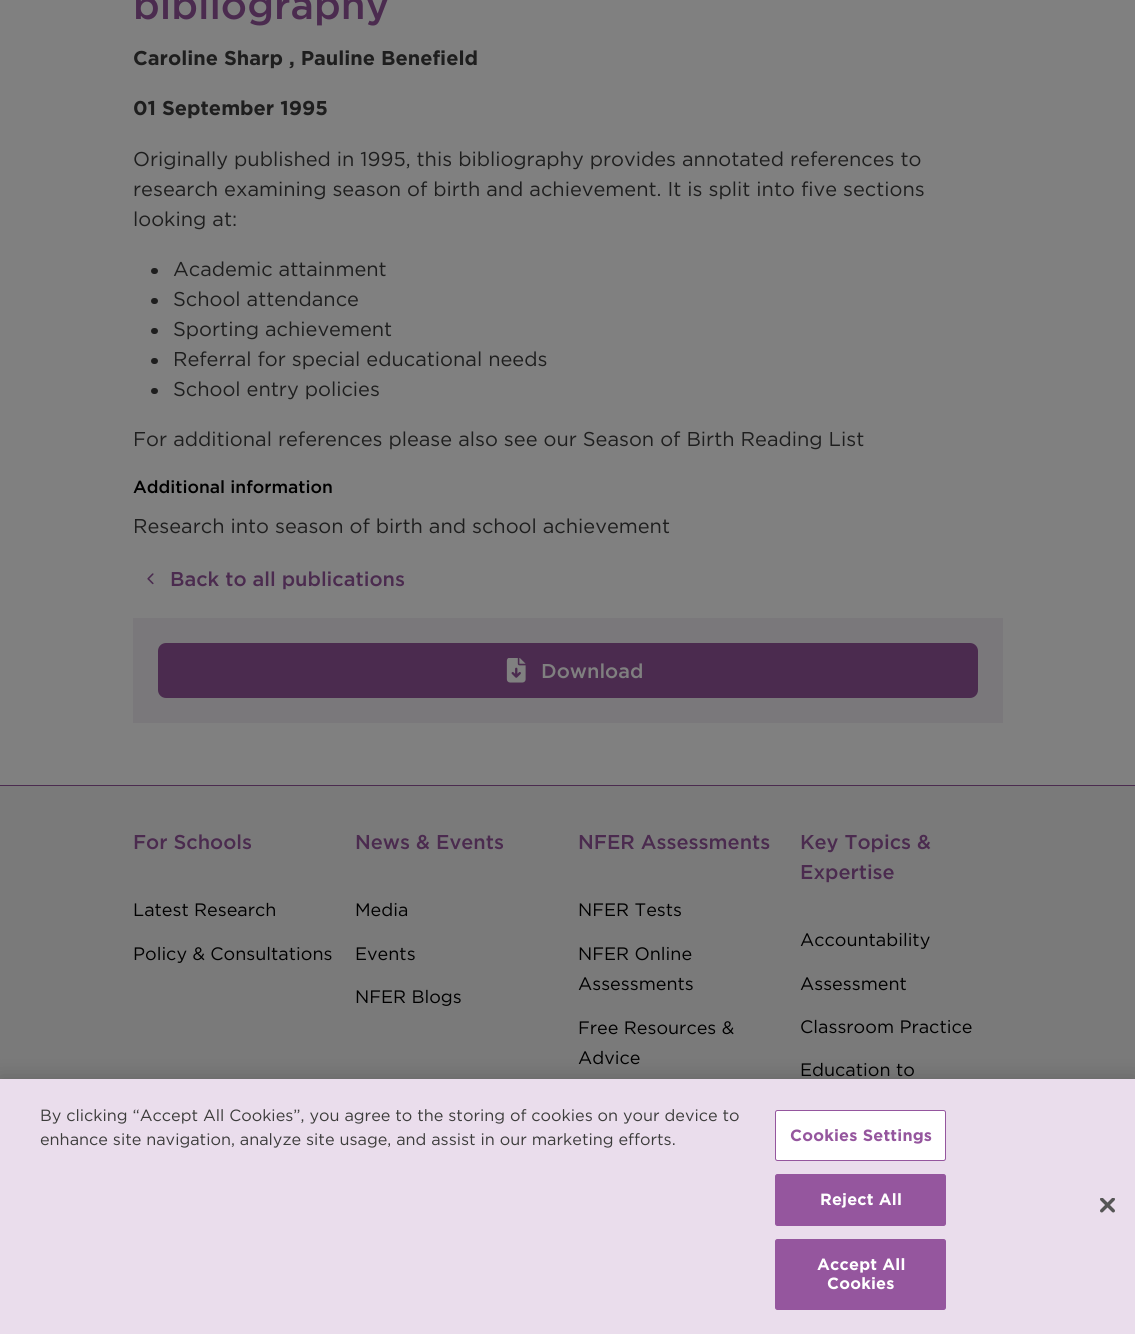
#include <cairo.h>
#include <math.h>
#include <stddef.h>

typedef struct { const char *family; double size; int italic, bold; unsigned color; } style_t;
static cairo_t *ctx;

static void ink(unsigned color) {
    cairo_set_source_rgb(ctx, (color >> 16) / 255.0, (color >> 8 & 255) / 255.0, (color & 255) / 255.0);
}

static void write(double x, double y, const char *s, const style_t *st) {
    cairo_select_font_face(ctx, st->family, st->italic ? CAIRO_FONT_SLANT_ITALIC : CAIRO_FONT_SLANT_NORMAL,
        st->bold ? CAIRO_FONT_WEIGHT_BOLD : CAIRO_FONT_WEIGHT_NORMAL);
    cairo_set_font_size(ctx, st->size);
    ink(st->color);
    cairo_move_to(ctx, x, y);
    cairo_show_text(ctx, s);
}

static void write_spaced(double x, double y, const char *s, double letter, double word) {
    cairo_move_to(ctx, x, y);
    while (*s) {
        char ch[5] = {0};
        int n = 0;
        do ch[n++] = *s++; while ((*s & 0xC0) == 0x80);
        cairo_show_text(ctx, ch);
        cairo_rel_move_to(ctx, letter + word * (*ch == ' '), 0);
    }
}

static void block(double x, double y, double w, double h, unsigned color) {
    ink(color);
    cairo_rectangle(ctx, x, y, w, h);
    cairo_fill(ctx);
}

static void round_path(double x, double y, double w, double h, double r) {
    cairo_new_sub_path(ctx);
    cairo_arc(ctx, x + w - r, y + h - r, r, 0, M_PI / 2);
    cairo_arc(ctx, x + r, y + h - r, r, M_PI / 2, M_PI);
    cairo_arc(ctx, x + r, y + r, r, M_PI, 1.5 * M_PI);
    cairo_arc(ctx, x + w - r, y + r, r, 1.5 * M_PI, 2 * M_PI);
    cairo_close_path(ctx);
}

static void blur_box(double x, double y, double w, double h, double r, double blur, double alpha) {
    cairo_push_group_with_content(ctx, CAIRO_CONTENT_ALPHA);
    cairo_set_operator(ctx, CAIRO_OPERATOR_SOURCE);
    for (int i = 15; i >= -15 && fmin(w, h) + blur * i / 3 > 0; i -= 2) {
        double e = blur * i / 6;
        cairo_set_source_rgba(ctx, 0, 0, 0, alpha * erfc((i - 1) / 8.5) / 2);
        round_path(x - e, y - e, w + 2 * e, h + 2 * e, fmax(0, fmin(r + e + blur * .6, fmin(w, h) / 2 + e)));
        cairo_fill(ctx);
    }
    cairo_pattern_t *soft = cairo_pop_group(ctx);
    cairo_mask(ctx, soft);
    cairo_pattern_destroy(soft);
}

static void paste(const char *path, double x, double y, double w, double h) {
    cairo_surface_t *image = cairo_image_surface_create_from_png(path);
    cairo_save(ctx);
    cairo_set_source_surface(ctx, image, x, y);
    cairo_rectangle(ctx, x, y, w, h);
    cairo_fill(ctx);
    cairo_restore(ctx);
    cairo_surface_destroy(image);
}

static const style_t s1 = {"Gotham Medium", 40, 0, 0, 0x4b2b4f};
static const style_t s2 = {"Gotham", 20, 0, 1, 0x1e1e1e};
static const style_t s3 = {"Gotham", 20, 0, 0, 0x1e1e1e};
static const style_t s4 = {"Gotham Medium", 17.5, 0, 0, 0x000000};
static const style_t s5 = {"Gotham Medium", 20, 0, 0, 0x4b2b4f};
static const style_t s6 = {"Gotham Medium", 20, 0, 0, 0x808080};
static const style_t s7 = {"Gotham", 18, 0, 0, 0x000000};
static const style_t s8 = {"Gotham", 16.25, 0, 0, 0x3c3c3b};

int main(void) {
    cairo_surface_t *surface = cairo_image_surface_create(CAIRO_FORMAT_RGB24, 1135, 1334);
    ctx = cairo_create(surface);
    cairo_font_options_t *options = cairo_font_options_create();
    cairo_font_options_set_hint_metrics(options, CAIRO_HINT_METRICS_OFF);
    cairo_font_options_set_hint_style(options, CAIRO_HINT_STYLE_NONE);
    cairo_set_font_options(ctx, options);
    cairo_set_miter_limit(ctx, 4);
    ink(0x808080);
    cairo_paint(ctx);
    write(133, 19, "bibliography", &s1);
    write(133, 65, "Caroline Sharp , Pauline Benefield", &s2);
    write(133, 115, "01 September 1995", &s2);
    write(133, 166, "Originally published in 1995, this bibliography provides annotated references to", &s3);
    write(133, 196, "research examining season of birth and achievement. It is split into five sections", &s3);
    write(133, 226, "looking at:", &s3);
    round_path(151, 268, 7, 6, 3);
    cairo_fill(ctx);
    write(173, 276, "Academic attainment", &s3);
    round_path(151, 298, 7, 6, 3);
    cairo_fill(ctx);
    write(173, 306, "School attendance", &s3);
    round_path(151, 328, 7, 6, 3);
    cairo_fill(ctx);
    write(173, 336, "Sporting achievement", &s3);
    round_path(151, 358, 7, 6, 3);
    cairo_fill(ctx);
    write(173, 366, "Referral for special educational needs", &s3);
    round_path(151, 388, 7, 6, 3);
    cairo_fill(ctx);
    write(173, 396, "School entry policies", &s3);
    write(133, 446, "For additional references please also see our Season of Birth Reading List", &s3);
    write(133, 493, "Additional information", &s4);
    write(133, 533, "Research into season of birth and school achievement", &s3);
    paste("pic1.png", 147, 573, 7, 12);
    write(170, 586, "Back to all publications", &s5);
    block(133, 618, 870, 105, 0x7a787b);
    ink(0x4b2b4f);
    round_path(158, 643, 820, 55, 8);
    cairo_fill(ctx);
    paste("pic2.png", 506, 658, 20, 25);
    write(541, 678, "Download", &s6);
    block(0, 785, 1135, 1, 0x4b2b4f);
    block(0, 786, 1135, 293, 0x7a7a7a);
    write(133, 849, "For Schools", &s5);
    write(133, 916, "Latest Research", &s7);
    write(133, 960, "Policy & Consultations", &s7);
    write(355, 849, "News & Events", &s5);
    write(355, 916, "Media", &s7);
    write(355, 960, "Events", &s7);
    write(355, 1003, "NFER Blogs", &s7);
    write(578, 849, "NFER Assessments", &s5);
    write(578, 916, "NFER Tests", &s7);
    write(578, 960, "NFER Online", &s7);
    write(578, 990, "Assessments", &s7);
    write(578, 1034, "Free Resources &", &s7);
    write(578, 1064, "Advice", &s7);
    write(800, 849, "Key Topics &", &s5);
    write(800, 879, "Expertise", &s5);
    write(800, 946, "Accountability", &s7);
    write(800, 990, "Assessment", &s7);
    write(800, 1033, "Classroom Practice", &s7);
    write(800, 1076, "Education to", &s7);
    ink(0x000000);
    blur_box(0, 1079, 1135, 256, 0, 11, 0.2);
    block(0, 1079, 1135, 255, 0xeaddec);
    write(40, 1121, "By clicking “Accept All Cookies”, you agree to the storing of cookies on your device to", &s8);
    write(40, 1145, "enhance site navigation, analyze site usage, and assist in our marketing efforts.", &s8);
    ink(0xffffff);
    round_path(775.5, 1110.5, 170, 50, 2);
    cairo_fill_preserve(ctx);
    ink(0x95569e);
    cairo_set_line_width(ctx, 1);
    cairo_stroke(ctx);
    cairo_select_font_face(ctx, "Gotham", CAIRO_FONT_SLANT_NORMAL, CAIRO_FONT_WEIGHT_BOLD);
    write_spaced(790, 1141, "Cookies Settings", 0.2, 0);
    round_path(775.5, 1174.5, 170, 51, 2);
    cairo_fill_preserve(ctx);
    cairo_stroke(ctx);
    ink(0xffffff);
    write_spaced(820, 1205, "Reject All", 0.2, 0);
    ink(0x95569e);
    round_path(775.5, 1239.5, 170, 70, 2);
    cairo_fill_preserve(ctx);
    cairo_stroke(ctx);
    ink(0xffffff);
    write_spaced(817, 1270, "Accept All", 0.2, 0);
    write_spaced(827, 1289, "Cookies", 0.2, 0);
    paste("pic3.png", 1100, 1198, 15, 15);
    cairo_surface_write_to_png(surface, "screenshot.png");
    cairo_font_options_destroy(options);
    cairo_destroy(ctx);
    cairo_surface_destroy(surface);
    return 0;
}
